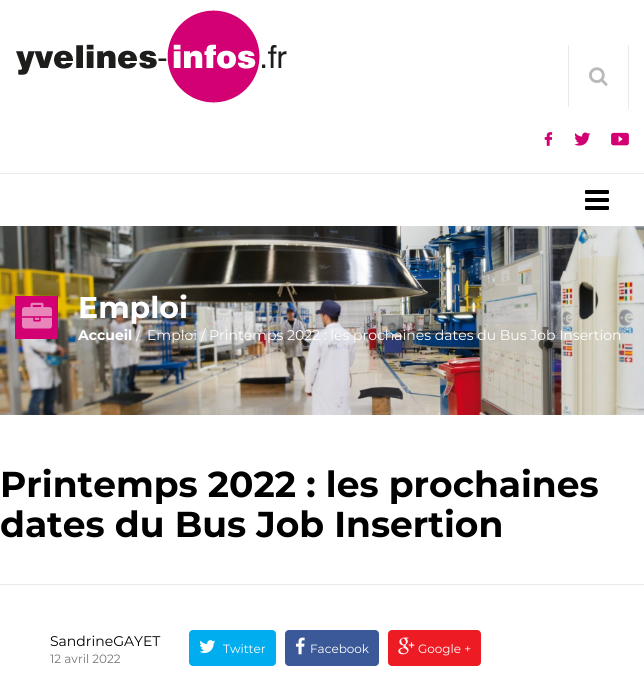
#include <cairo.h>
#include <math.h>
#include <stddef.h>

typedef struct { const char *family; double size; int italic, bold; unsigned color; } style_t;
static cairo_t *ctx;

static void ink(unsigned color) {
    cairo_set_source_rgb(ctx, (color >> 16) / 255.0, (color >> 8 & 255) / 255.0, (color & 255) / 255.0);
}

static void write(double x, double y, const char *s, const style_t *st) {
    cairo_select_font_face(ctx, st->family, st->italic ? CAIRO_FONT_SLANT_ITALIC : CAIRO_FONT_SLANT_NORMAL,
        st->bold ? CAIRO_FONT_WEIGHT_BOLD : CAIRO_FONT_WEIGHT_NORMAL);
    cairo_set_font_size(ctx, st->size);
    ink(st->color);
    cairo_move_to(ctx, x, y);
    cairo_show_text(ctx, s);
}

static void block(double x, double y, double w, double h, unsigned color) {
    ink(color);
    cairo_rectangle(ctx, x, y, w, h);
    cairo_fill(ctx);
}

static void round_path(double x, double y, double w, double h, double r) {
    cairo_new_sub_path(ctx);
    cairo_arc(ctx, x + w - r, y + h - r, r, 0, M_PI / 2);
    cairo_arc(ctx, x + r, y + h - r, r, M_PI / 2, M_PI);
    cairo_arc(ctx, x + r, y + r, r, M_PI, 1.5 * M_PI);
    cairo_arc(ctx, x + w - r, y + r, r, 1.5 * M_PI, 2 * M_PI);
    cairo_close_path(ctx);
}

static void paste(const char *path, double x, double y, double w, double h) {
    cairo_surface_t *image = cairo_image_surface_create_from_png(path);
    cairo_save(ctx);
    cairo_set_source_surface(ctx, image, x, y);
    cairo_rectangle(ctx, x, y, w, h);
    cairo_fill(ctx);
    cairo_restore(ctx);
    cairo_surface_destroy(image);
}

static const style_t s1 = {"Montserrat", 30, 0, 1, 0xffffff};
static const style_t s2 = {"Montserrat", 14, 0, 1, 0xffffff};
static const style_t s3 = {"Montserrat", 12, 0, 0, 0xffffff};
static const style_t s4 = {"Montserrat", 14, 0, 0, 0xffffff};
static const style_t s5 = {"Montserrat", 36, 0, 1, 0x000000};
static const style_t s6 = {"Montserrat", 14, 0, 0, 0x000000};
static const style_t s7 = {"Montserrat", 12, 0, 0, 0x757575};

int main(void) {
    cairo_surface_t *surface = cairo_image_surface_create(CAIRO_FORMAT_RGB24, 644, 679);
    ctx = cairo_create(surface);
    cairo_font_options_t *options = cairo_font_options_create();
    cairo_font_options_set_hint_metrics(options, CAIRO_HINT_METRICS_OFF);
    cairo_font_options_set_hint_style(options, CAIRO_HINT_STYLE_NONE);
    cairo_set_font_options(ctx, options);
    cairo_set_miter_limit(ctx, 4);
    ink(0xffffff);
    cairo_paint(ctx);
    block(0, 173, 644, 1, 0xe9eaed);
    paste("pic1.png", 16, 10, 271, 93);
    block(628, 45, 1, 64, 0xe9eaed);
    block(568, 45, 1, 62, 0xe9eaed);
    paste("pic2.png", 589, 67, 19, 19);
    paste("pic3.png", 544, 132, 9, 14);
    paste("pic4.png", 574, 132, 17, 14);
    paste("pic5.png", 611, 132, 18, 14);
    paste("pic6.png", 585, 190, 24, 20);
    paste("pic7.png", 0, 226, 644, 189);
    block(15, 296, 43, 43, 0xd30073);
    paste("pic8.png", 22, 302, 30, 27);
    write(78, 318, "Emploi", &s1);
    write(78, 340, "Accueil", &s2);
    write(136, 340, "/", &s3);
    write(147, 340, "Emploi / Printemps 2022 : les prochaines dates du Bus Job Insertion", &s4);
    write(0, 497, "Printemps 2022 : les prochaines", &s5);
    write(0, 537, "dates du Bus Job Insertion", &s5);
    block(0, 584, 644, 1, 0xe9eaed);
    write(50, 646, "SandrineGAYET", &s6);
    write(50, 663, "12 avril 2022", &s7);
    ink(0x00aeef);
    round_path(189, 630, 87, 36, 4);
    cairo_fill(ctx);
    paste("pic9.png", 199, 640, 17, 13);
    write(223, 653, "Twitter", &s3);
    ink(0x3b5998);
    round_path(285, 630, 94, 36, 4);
    cairo_fill(ctx);
    paste("pic10.png", 295, 637, 10, 18);
    write(310, 653, "Facebook", &s3);
    ink(0xed1c24);
    round_path(388, 630, 93, 36, 4);
    cairo_fill(ctx);
    paste("pic11.png", 398, 637, 17, 18);
    write(418, 653, "Google +", &s3);
    cairo_surface_write_to_png(surface, "screenshot.png");
    cairo_font_options_destroy(options);
    cairo_destroy(ctx);
    cairo_surface_destroy(surface);
    return 0;
}
